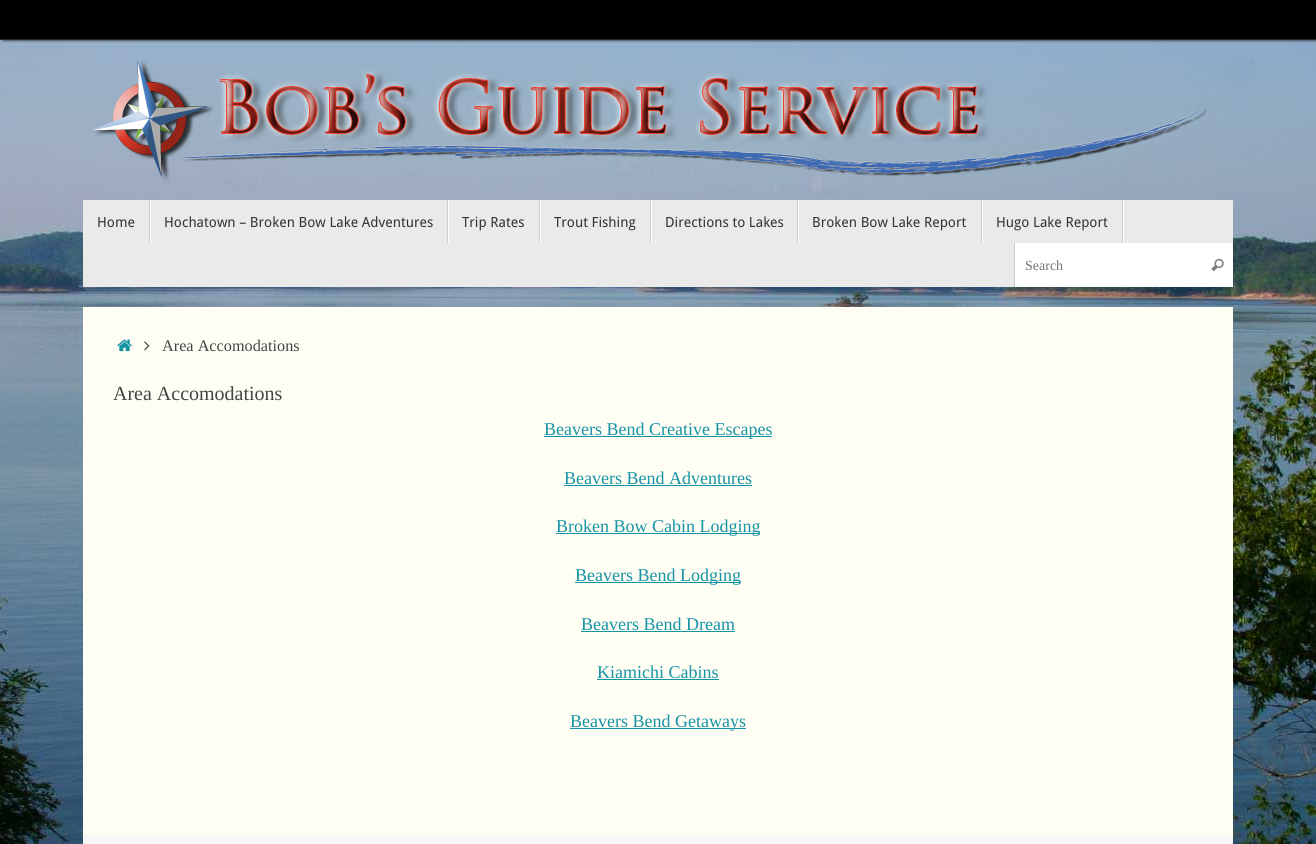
#include <cairo.h>
#include <math.h>
#include <stddef.h>

typedef struct { const char *family; double size; int italic, bold; unsigned color; } style_t;
static cairo_t *ctx;

static void ink(unsigned color) {
    cairo_set_source_rgb(ctx, (color >> 16) / 255.0, (color >> 8 & 255) / 255.0, (color & 255) / 255.0);
}

static void write(double x, double y, const char *s, const style_t *st) {
    cairo_select_font_face(ctx, st->family, st->italic ? CAIRO_FONT_SLANT_ITALIC : CAIRO_FONT_SLANT_NORMAL,
        st->bold ? CAIRO_FONT_WEIGHT_BOLD : CAIRO_FONT_WEIGHT_NORMAL);
    cairo_set_font_size(ctx, st->size);
    ink(st->color);
    cairo_move_to(ctx, x, y);
    cairo_show_text(ctx, s);
}

static void block(double x, double y, double w, double h, unsigned color) {
    ink(color);
    cairo_rectangle(ctx, x, y, w, h);
    cairo_fill(ctx);
}

static void round_path(double x, double y, double w, double h, double r) {
    cairo_new_sub_path(ctx);
    cairo_arc(ctx, x + w - r, y + h - r, r, 0, M_PI / 2);
    cairo_arc(ctx, x + r, y + h - r, r, M_PI / 2, M_PI);
    cairo_arc(ctx, x + r, y + r, r, M_PI, 1.5 * M_PI);
    cairo_arc(ctx, x + w - r, y + r, r, 1.5 * M_PI, 2 * M_PI);
    cairo_close_path(ctx);
}

static void blur_box(double x, double y, double w, double h, double r, double blur, double alpha) {
    cairo_push_group_with_content(ctx, CAIRO_CONTENT_ALPHA);
    cairo_set_operator(ctx, CAIRO_OPERATOR_SOURCE);
    for (int i = 15; i >= -15 && fmin(w, h) + blur * i / 3 > 0; i -= 2) {
        double e = blur * i / 6;
        cairo_set_source_rgba(ctx, 0, 0, 0, alpha * erfc((i - 1) / 8.5) / 2);
        round_path(x - e, y - e, w + 2 * e, h + 2 * e, fmax(0, fmin(r + e + blur * .6, fmin(w, h) / 2 + e)));
        cairo_fill(ctx);
    }
    cairo_pattern_t *soft = cairo_pop_group(ctx);
    cairo_mask(ctx, soft);
    cairo_pattern_destroy(soft);
}

static void paste(const char *path, double x, double y, double w, double h) {
    cairo_surface_t *image = cairo_image_surface_create_from_png(path);
    cairo_save(ctx);
    cairo_set_source_surface(ctx, image, x, y);
    cairo_rectangle(ctx, x, y, w, h);
    cairo_fill(ctx);
    cairo_restore(ctx);
    cairo_surface_destroy(image);
}

static const style_t s1 = {"Droid Sans", 14, 0, 0, 0x333333};
static const style_t s2 = {"Liberation Serif", 14, 0, 0, 0x757575};
static const style_t s3 = {"Liberation Serif", 16.25, 0, 0, 0x444444};
static const style_t s4 = {"Liberation Serif", 20, 0, 0, 0x444444};
static const style_t s5 = {"Liberation Serif", 18, 0, 0, 0x1693a5};

int main(void) {
    cairo_surface_t *surface = cairo_image_surface_create(CAIRO_FORMAT_RGB24, 1316, 844);
    ctx = cairo_create(surface);
    cairo_font_options_t *options = cairo_font_options_create();
    cairo_font_options_set_hint_metrics(options, CAIRO_HINT_METRICS_OFF);
    cairo_font_options_set_hint_style(options, CAIRO_HINT_STYLE_NONE);
    cairo_set_font_options(ctx, options);
    cairo_set_miter_limit(ctx, 4);
    ink(0xffffff);
    cairo_paint(ctx);
    paste("pic1.png", 0, 40, 1316, 804);
    ink(0x000000);
    blur_box(3, 0, 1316, 40, 0, 1.5, 1);
    block(0, 0, 1316, 39, 0x000000);
    block(0, 39, 1316, 1, 0x282828);
    paste("pic2.png", 91, 60, 1116, 120);
    block(83, 200, 1150, 87, 0xeaeaea);
    block(150, 200, 1, 43, 0xffffff);
    block(149, 200, 1, 43, 0xcccccc);
    write(97, 227, "Home", &s1);
    block(448, 200, 1, 43, 0xffffff);
    block(447, 200, 1, 43, 0xcccccc);
    write(164, 227, "Hochatown – Broken Bow Lake Adventures", &s1);
    block(540, 200, 1, 43, 0xffffff);
    block(539, 200, 1, 43, 0xcccccc);
    write(462, 227, "Trip Rates", &s1);
    block(651, 200, 1, 43, 0xffffff);
    block(650, 200, 1, 43, 0xcccccc);
    write(554, 227, "Trout Fishing", &s1);
    block(798, 200, 1, 43, 0xffffff);
    block(797, 200, 1, 43, 0xcccccc);
    write(665, 227, "Directions to Lakes", &s1);
    block(982, 200, 1, 43, 0xffffff);
    block(981, 200, 1, 43, 0xcccccc);
    write(812, 227, "Broken Bow Lake Report", &s1);
    block(1123, 200, 1, 43, 0xffffff);
    block(1122, 200, 1, 43, 0xcccccc);
    write(996, 227, "Hugo Lake Report", &s1);
    block(1015, 243, 218, 44, 0xffffff);
    block(1014, 243, 1, 44, 0xcccccc);
    write(1025, 270, "Search", &s2);
    paste("pic3.png", 1211, 258, 13, 14);
    block(83, 307, 1150, 528, 0xfffef5);
    paste("pic4.png", 117, 339, 15, 13);
    paste("pic5.png", 144, 341, 6, 10);
    write(162, 351, "Area Accomodations", &s3);
    write(113, 400, "Area Accomodations", &s4);
    block(544, 436, 228, 1, 0x1693a5);
    write(544, 435, "Beavers Bend Creative Escapes", &s5);
    write(564, 484, "Beavers Bend Adventures", &s5);
    block(564, 485, 188, 1, 0x1693a5);
    block(556, 533, 204, 1, 0x1693a5);
    write(556, 532, "Broken Bow Cabin Lodging", &s5);
    block(575, 582, 166, 1, 0x1693a5);
    write(575, 581, "Beavers Bend Lodging", &s5);
    write(581, 630, "Beavers Bend Dream", &s5);
    block(581, 631, 154, 1, 0x1693a5);
    write(597, 678, "Kiamichi Cabins", &s5);
    block(597, 679, 122, 1, 0x1693a5);
    block(570, 728, 176, 1, 0x1693a5);
    write(570, 727, "Beavers Bend Getaways", &s5);
    block(83, 835, 1150, 9, 0xf7f7f7);
    cairo_surface_write_to_png(surface, "screenshot.png");
    cairo_font_options_destroy(options);
    cairo_destroy(ctx);
    cairo_surface_destroy(surface);
    return 0;
}
